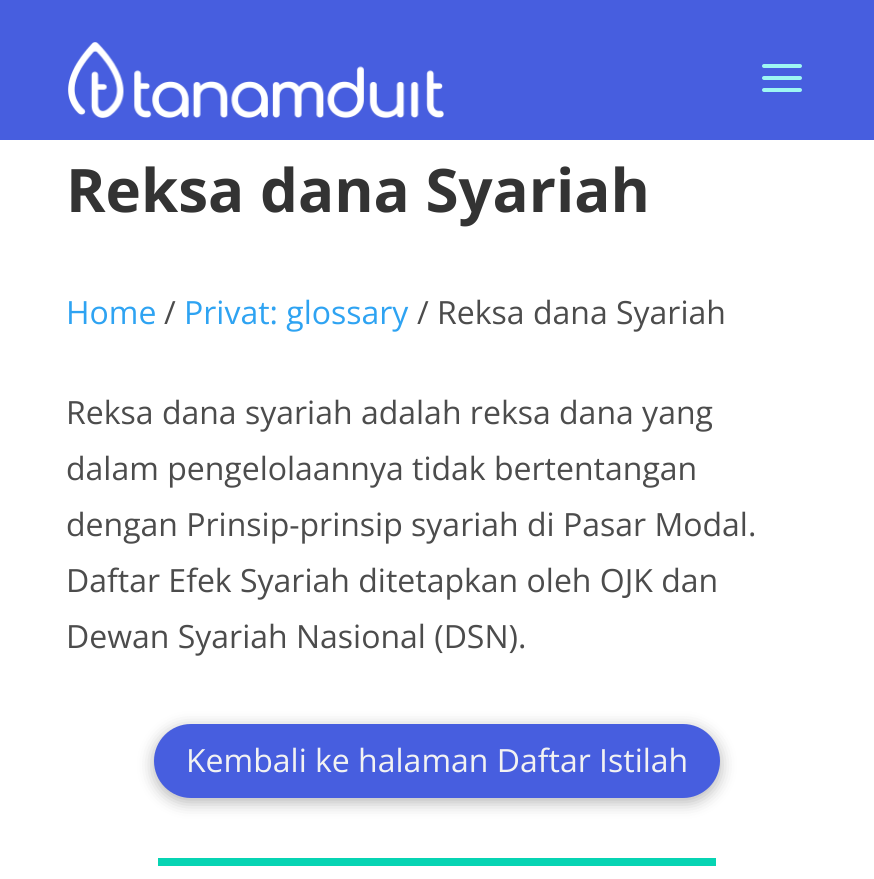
#include <cairo.h>
#include <math.h>
#include <stddef.h>

typedef struct { const char *family; double size; int italic, bold; unsigned color; } style_t;
static cairo_t *ctx;

static void ink(unsigned color) {
    cairo_set_source_rgb(ctx, (color >> 16) / 255.0, (color >> 8 & 255) / 255.0, (color & 255) / 255.0);
}

static void write(double x, double y, const char *s, const style_t *st) {
    cairo_select_font_face(ctx, st->family, st->italic ? CAIRO_FONT_SLANT_ITALIC : CAIRO_FONT_SLANT_NORMAL,
        st->bold ? CAIRO_FONT_WEIGHT_BOLD : CAIRO_FONT_WEIGHT_NORMAL);
    cairo_set_font_size(ctx, st->size);
    ink(st->color);
    cairo_move_to(ctx, x, y);
    cairo_show_text(ctx, s);
}

static void block(double x, double y, double w, double h, unsigned color) {
    ink(color);
    cairo_rectangle(ctx, x, y, w, h);
    cairo_fill(ctx);
}

static void round_path(double x, double y, double w, double h, double r) {
    cairo_new_sub_path(ctx);
    cairo_arc(ctx, x + w - r, y + h - r, r, 0, M_PI / 2);
    cairo_arc(ctx, x + r, y + h - r, r, M_PI / 2, M_PI);
    cairo_arc(ctx, x + r, y + r, r, M_PI, 1.5 * M_PI);
    cairo_arc(ctx, x + w - r, y + r, r, 1.5 * M_PI, 2 * M_PI);
    cairo_close_path(ctx);
}

static void blur_box(double x, double y, double w, double h, double r, double blur, double alpha) {
    cairo_push_group_with_content(ctx, CAIRO_CONTENT_ALPHA);
    cairo_set_operator(ctx, CAIRO_OPERATOR_SOURCE);
    for (int i = 15; i >= -15 && fmin(w, h) + blur * i / 3 > 0; i -= 2) {
        double e = blur * i / 6;
        cairo_set_source_rgba(ctx, 0, 0, 0, alpha * erfc((i - 1) / 8.5) / 2);
        round_path(x - e, y - e, w + 2 * e, h + 2 * e, fmax(0, fmin(r + e + blur * .6, fmin(w, h) / 2 + e)));
        cairo_fill(ctx);
    }
    cairo_pattern_t *soft = cairo_pop_group(ctx);
    cairo_mask(ctx, soft);
    cairo_pattern_destroy(soft);
}

static void paste(const char *path, double x, double y, double w, double h) {
    cairo_surface_t *image = cairo_image_surface_create_from_png(path);
    cairo_save(ctx);
    cairo_set_source_surface(ctx, image, x, y);
    cairo_rectangle(ctx, x, y, w, h);
    cairo_fill(ctx);
    cairo_restore(ctx);
    cairo_surface_destroy(image);
}

static const style_t s1 = {"Open Sans", 60, 0, 1, 0x333333};
static const style_t s2 = {"Open Sans", 32, 0, 0, 0x2ea3f2};
static const style_t s3 = {"Open Sans", 32, 0, 0, 0x4c4c4c};
static const style_t s4 = {"Open Sans", 32, 0, 0, 0xf2f2f2};

int main(void) {
    cairo_surface_t *surface = cairo_image_surface_create(CAIRO_FORMAT_RGB24, 874, 879);
    ctx = cairo_create(surface);
    cairo_font_options_t *options = cairo_font_options_create();
    cairo_font_options_set_hint_metrics(options, CAIRO_HINT_METRICS_OFF);
    cairo_font_options_set_hint_style(options, CAIRO_HINT_STYLE_NONE);
    cairo_set_font_options(ctx, options);
    cairo_set_miter_limit(ctx, 4);
    ink(0xffffff);
    cairo_paint(ctx);
    block(0, 0, 874, 140, 0x475edf);
    paste("pic1.png", 68, 42, 376, 76);
    paste("pic2.png", 762, 64, 40, 28);
    write(66, 212, "Reksa dana Syariah", &s1);
    write(66, 324, "Home", &s2);
    write(164, 324, "/", &s3);
    write(184, 324, "Privat: glossary", &s2);
    write(417, 324, "/ Reksa dana Syariah", &s3);
    write(66, 424, "Reksa dana syariah adalah reksa dana yang", &s3);
    write(66, 480, "dalam pengelolaannya tidak bertentangan", &s3);
    write(66, 536, "dengan Prinsip-prinsip syariah di Pasar Modal.", &s3);
    write(66, 592, "Daftar Efek Syariah ditetapkan oleh OJK dan", &s3);
    write(66, 648, "Dewan Syariah Nasional (DSN).", &s3);
    ink(0x000000);
    blur_box(154, 728, 566, 74, 37, 8, 0.3);
    ink(0x475edf);
    round_path(154, 724, 566, 74, 37);
    cairo_fill(ctx);
    write(186, 772, "Kembali ke halaman Daftar Istilah", &s4);
    block(158, 858, 558, 8, 0x07d4b3);
    cairo_surface_write_to_png(surface, "screenshot.png");
    cairo_font_options_destroy(options);
    cairo_destroy(ctx);
    cairo_surface_destroy(surface);
    return 0;
}
